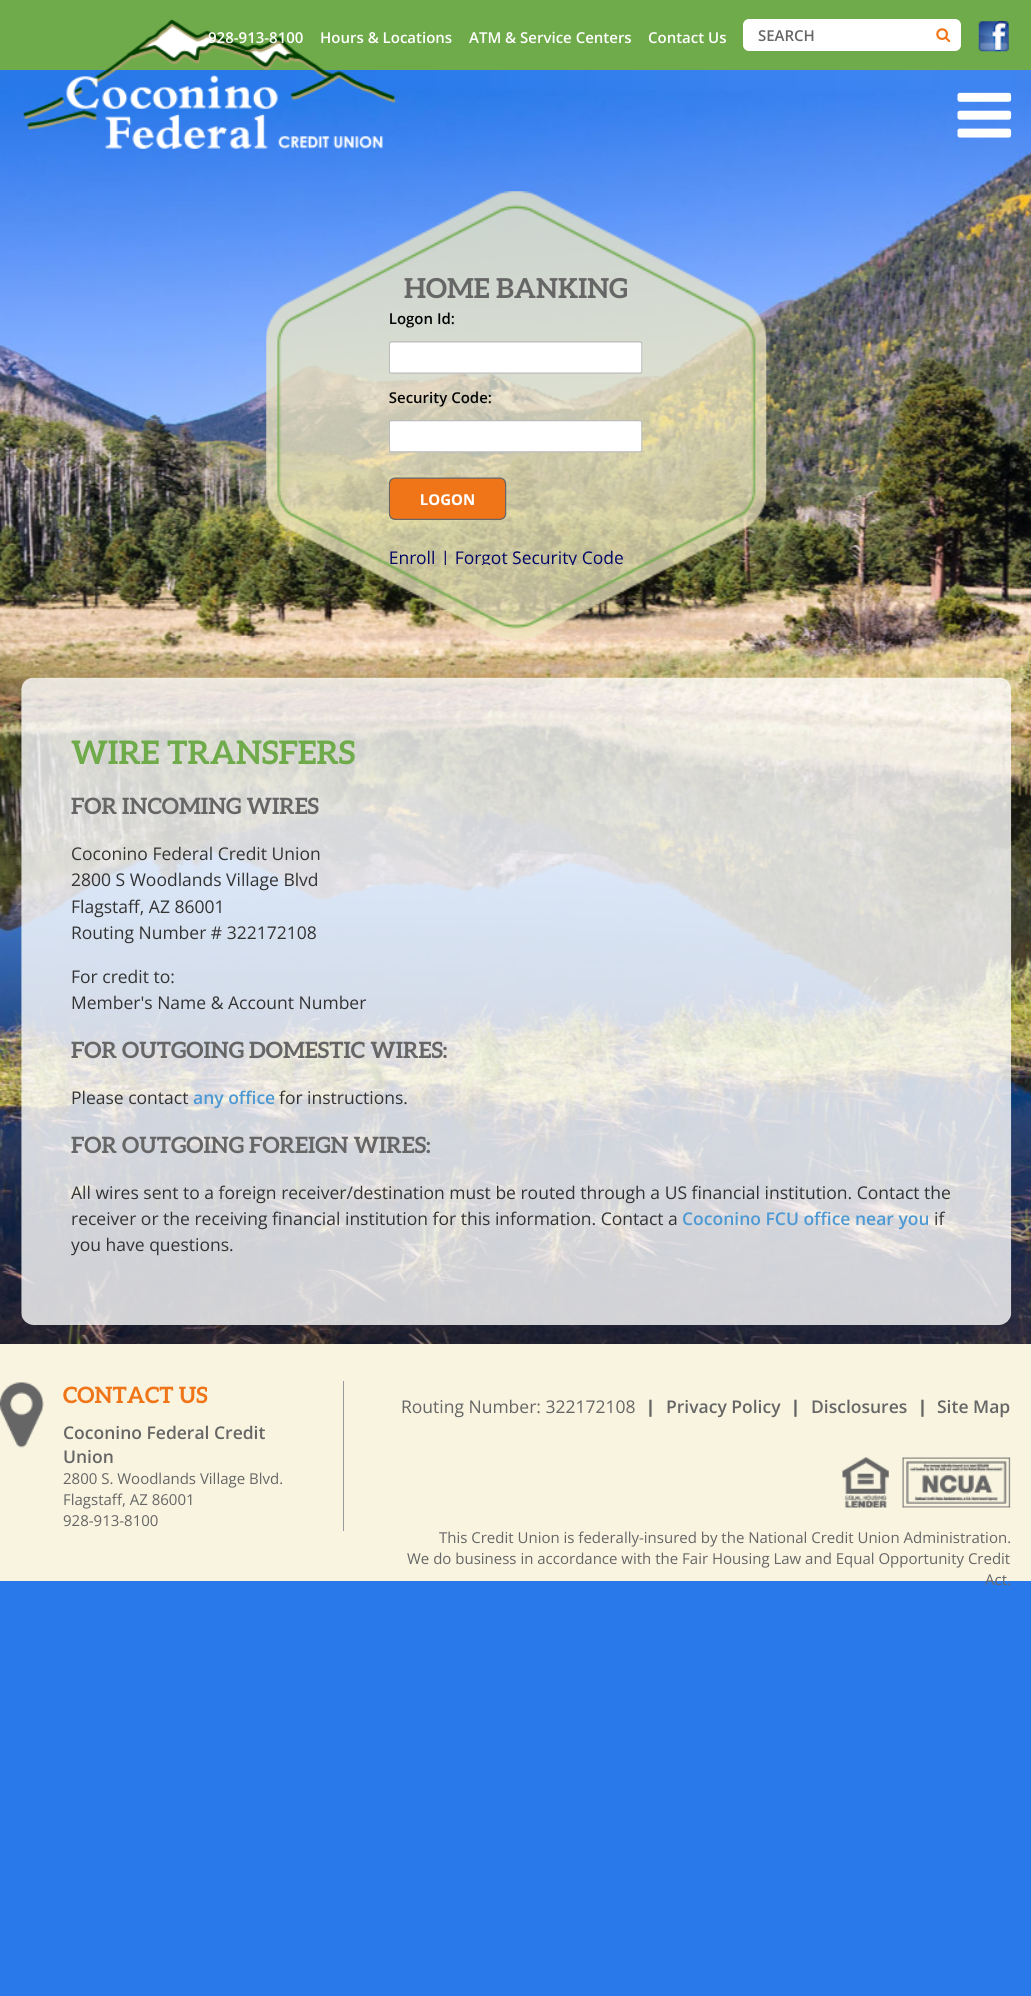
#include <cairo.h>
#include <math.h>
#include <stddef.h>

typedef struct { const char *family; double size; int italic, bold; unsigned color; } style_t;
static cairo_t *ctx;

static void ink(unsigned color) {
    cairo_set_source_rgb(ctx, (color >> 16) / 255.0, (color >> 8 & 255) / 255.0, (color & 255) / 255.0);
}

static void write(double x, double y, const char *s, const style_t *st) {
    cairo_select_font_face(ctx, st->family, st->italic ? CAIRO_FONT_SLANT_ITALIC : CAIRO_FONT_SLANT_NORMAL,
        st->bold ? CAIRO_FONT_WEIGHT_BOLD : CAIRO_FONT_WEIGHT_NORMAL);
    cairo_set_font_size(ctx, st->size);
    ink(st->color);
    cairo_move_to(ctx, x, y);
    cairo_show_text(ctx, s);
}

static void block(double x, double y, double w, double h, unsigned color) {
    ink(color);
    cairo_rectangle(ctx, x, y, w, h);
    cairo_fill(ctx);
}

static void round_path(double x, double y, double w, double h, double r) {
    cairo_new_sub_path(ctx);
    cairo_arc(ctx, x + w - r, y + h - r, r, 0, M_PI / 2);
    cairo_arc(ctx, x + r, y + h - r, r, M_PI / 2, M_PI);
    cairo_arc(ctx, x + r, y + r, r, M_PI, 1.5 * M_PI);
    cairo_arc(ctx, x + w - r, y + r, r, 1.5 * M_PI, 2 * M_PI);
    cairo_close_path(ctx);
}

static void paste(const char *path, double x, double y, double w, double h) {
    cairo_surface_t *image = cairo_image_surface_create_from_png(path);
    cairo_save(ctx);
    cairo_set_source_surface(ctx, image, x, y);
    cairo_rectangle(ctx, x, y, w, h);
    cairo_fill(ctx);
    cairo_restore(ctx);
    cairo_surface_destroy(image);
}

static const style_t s1 = {"Open Sans SemiBold", 15, 0, 0, 0xffffff};
static const style_t s2 = {"Open Sans SemiBold", 15, 0, 0, 0x666666};
static const style_t s3 = {"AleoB", 27.5, 0, 1, 0x666666};
static const style_t s4 = {"AleoB", 32.5, 0, 1, 0x70ab4b};
static const style_t s5 = {"AleoB", 22.5, 0, 1, 0x666666};
static const style_t s6 = {"Open Sans", 17.5, 0, 0, 0x333333};
static const style_t s7 = {"Open Sans SemiBold", 17.5, 0, 0, 0x4c99d4};
static const style_t s8 = {"AleoB", 22.5, 0, 1, 0xf07418};
static const style_t s9 = {"Open Sans SemiBold", 17.5, 0, 0, 0x666666};
static const style_t s10 = {"Open Sans", 15, 0, 0, 0x666666};
static const style_t s11 = {"Open Sans", 17.5, 0, 0, 0x666666};
static const style_t s12 = {"Open Sans ExtraBold", 17.5, 0, 0, 0x666666};

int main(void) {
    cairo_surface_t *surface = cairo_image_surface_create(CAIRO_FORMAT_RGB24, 1031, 1996);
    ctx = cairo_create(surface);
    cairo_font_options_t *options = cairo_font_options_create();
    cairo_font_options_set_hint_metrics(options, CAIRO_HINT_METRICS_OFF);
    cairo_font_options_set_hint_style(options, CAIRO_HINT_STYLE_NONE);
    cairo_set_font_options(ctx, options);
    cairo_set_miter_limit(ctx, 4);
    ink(0x2979ea);
    cairo_paint(ctx);
    paste("pic1.png", 0, 70, 1031, 1274);
    block(0, 0, 1031, 70, 0x70ab4b);
    paste("pic2.png", 23, 19, 373, 130);
    write(208, 43, "928-913-8100", &s1);
    write(320, 43, "Hours & Locations", &s1);
    write(469, 43, "ATM & Service Centers", &s1);
    write(648, 43, "Contact Us", &s1);
    round_path(743, 19, 218, 32, 6);
    cairo_fill(ctx);
    write(758, 41, "SEARCH", &s2);
    paste("pic3.png", 936, 28, 15, 15);
    paste("pic4.png", 978, 21, 31, 31);
    paste("pic5.png", 957, 92, 55, 46);
    paste("pic6.png", 266, 191, 501, 449);
    write(404, 298, "HOME BANKING", &s3);
    paste("pic7.png", 388, 312, 255, 253);
    paste("pic8.png", 21, 677, 991, 648);
    write(71, 764, "WIRE TRANSFERS", &s4);
    write(71, 814, "FOR INCOMING WIRES", &s5);
    write(71, 860, "Coconino Federal Credit Union", &s6);
    write(71, 886, "2800 S Woodlands Village Blvd", &s6);
    write(71, 913, "Flagstaff, AZ 86001", &s6);
    write(71, 939, "Routing Number # 322172108", &s6);
    write(71, 983, "For credit to:", &s6);
    write(71, 1009, "Member's Name & Account Number", &s6);
    write(71, 1058, "FOR OUTGOING DOMESTIC WIRES:", &s5);
    write(71, 1104, "Please contact", &s6);
    write(193, 1104, "any office", &s7);
    write(279, 1104, "for instructions.", &s6);
    write(71, 1153, "FOR OUTGOING FOREIGN WIRES:", &s5);
    write(71, 1199, "All wires sent to a foreign receiver/destination must be routed through a US financial institution. Contact the", &s6);
    write(71, 1225, "receiver or the receiving financial institution for this information. Contact a", &s6);
    write(682, 1225, "Coconino FCU office near you", &s7);
    write(934, 1225, "if", &s6);
    write(71, 1251, "you have questions.", &s6);
    block(0, 1344, 1031, 237, 0xf8f4e0);
    paste("pic9.png", 0, 1382, 44, 66);
    block(343, 1381, 1, 150, 0x999999);
    write(63, 1403, "CONTACT US", &s8);
    write(63, 1439, "Coconino Federal Credit", &s9);
    write(63, 1463, "Union", &s9);
    write(63, 1484, "2800 S. Woodlands Village Blvd.", &s10);
    write(63, 1505, "Flagstaff, AZ 86001", &s10);
    write(63, 1526, "928-913-8100", &s10);
    write(401, 1413, "Routing Number: 322172108", &s11);
    write(646, 1413, "|", &s12);
    write(666, 1413, "Privacy Policy", &s9);
    write(791, 1413, "|", &s12);
    write(811, 1413, "Disclosures", &s9);
    write(918, 1413, "|", &s12);
    write(937, 1413, "Site Map", &s9);
    paste("pic10.png", 842, 1457, 47, 51);
    paste("pic11.png", 902, 1457, 109, 51);
    write(439, 1543, "This Credit Union is federally-insured by the National Credit Union Administration.", &s10);
    write(407, 1564, "We do business in accordance with the Fair Housing Law and Equal Opportunity Credit", &s10);
    write(985, 1585, "Act.", &s10);
    cairo_surface_write_to_png(surface, "screenshot.png");
    cairo_font_options_destroy(options);
    cairo_destroy(ctx);
    cairo_surface_destroy(surface);
    return 0;
}
